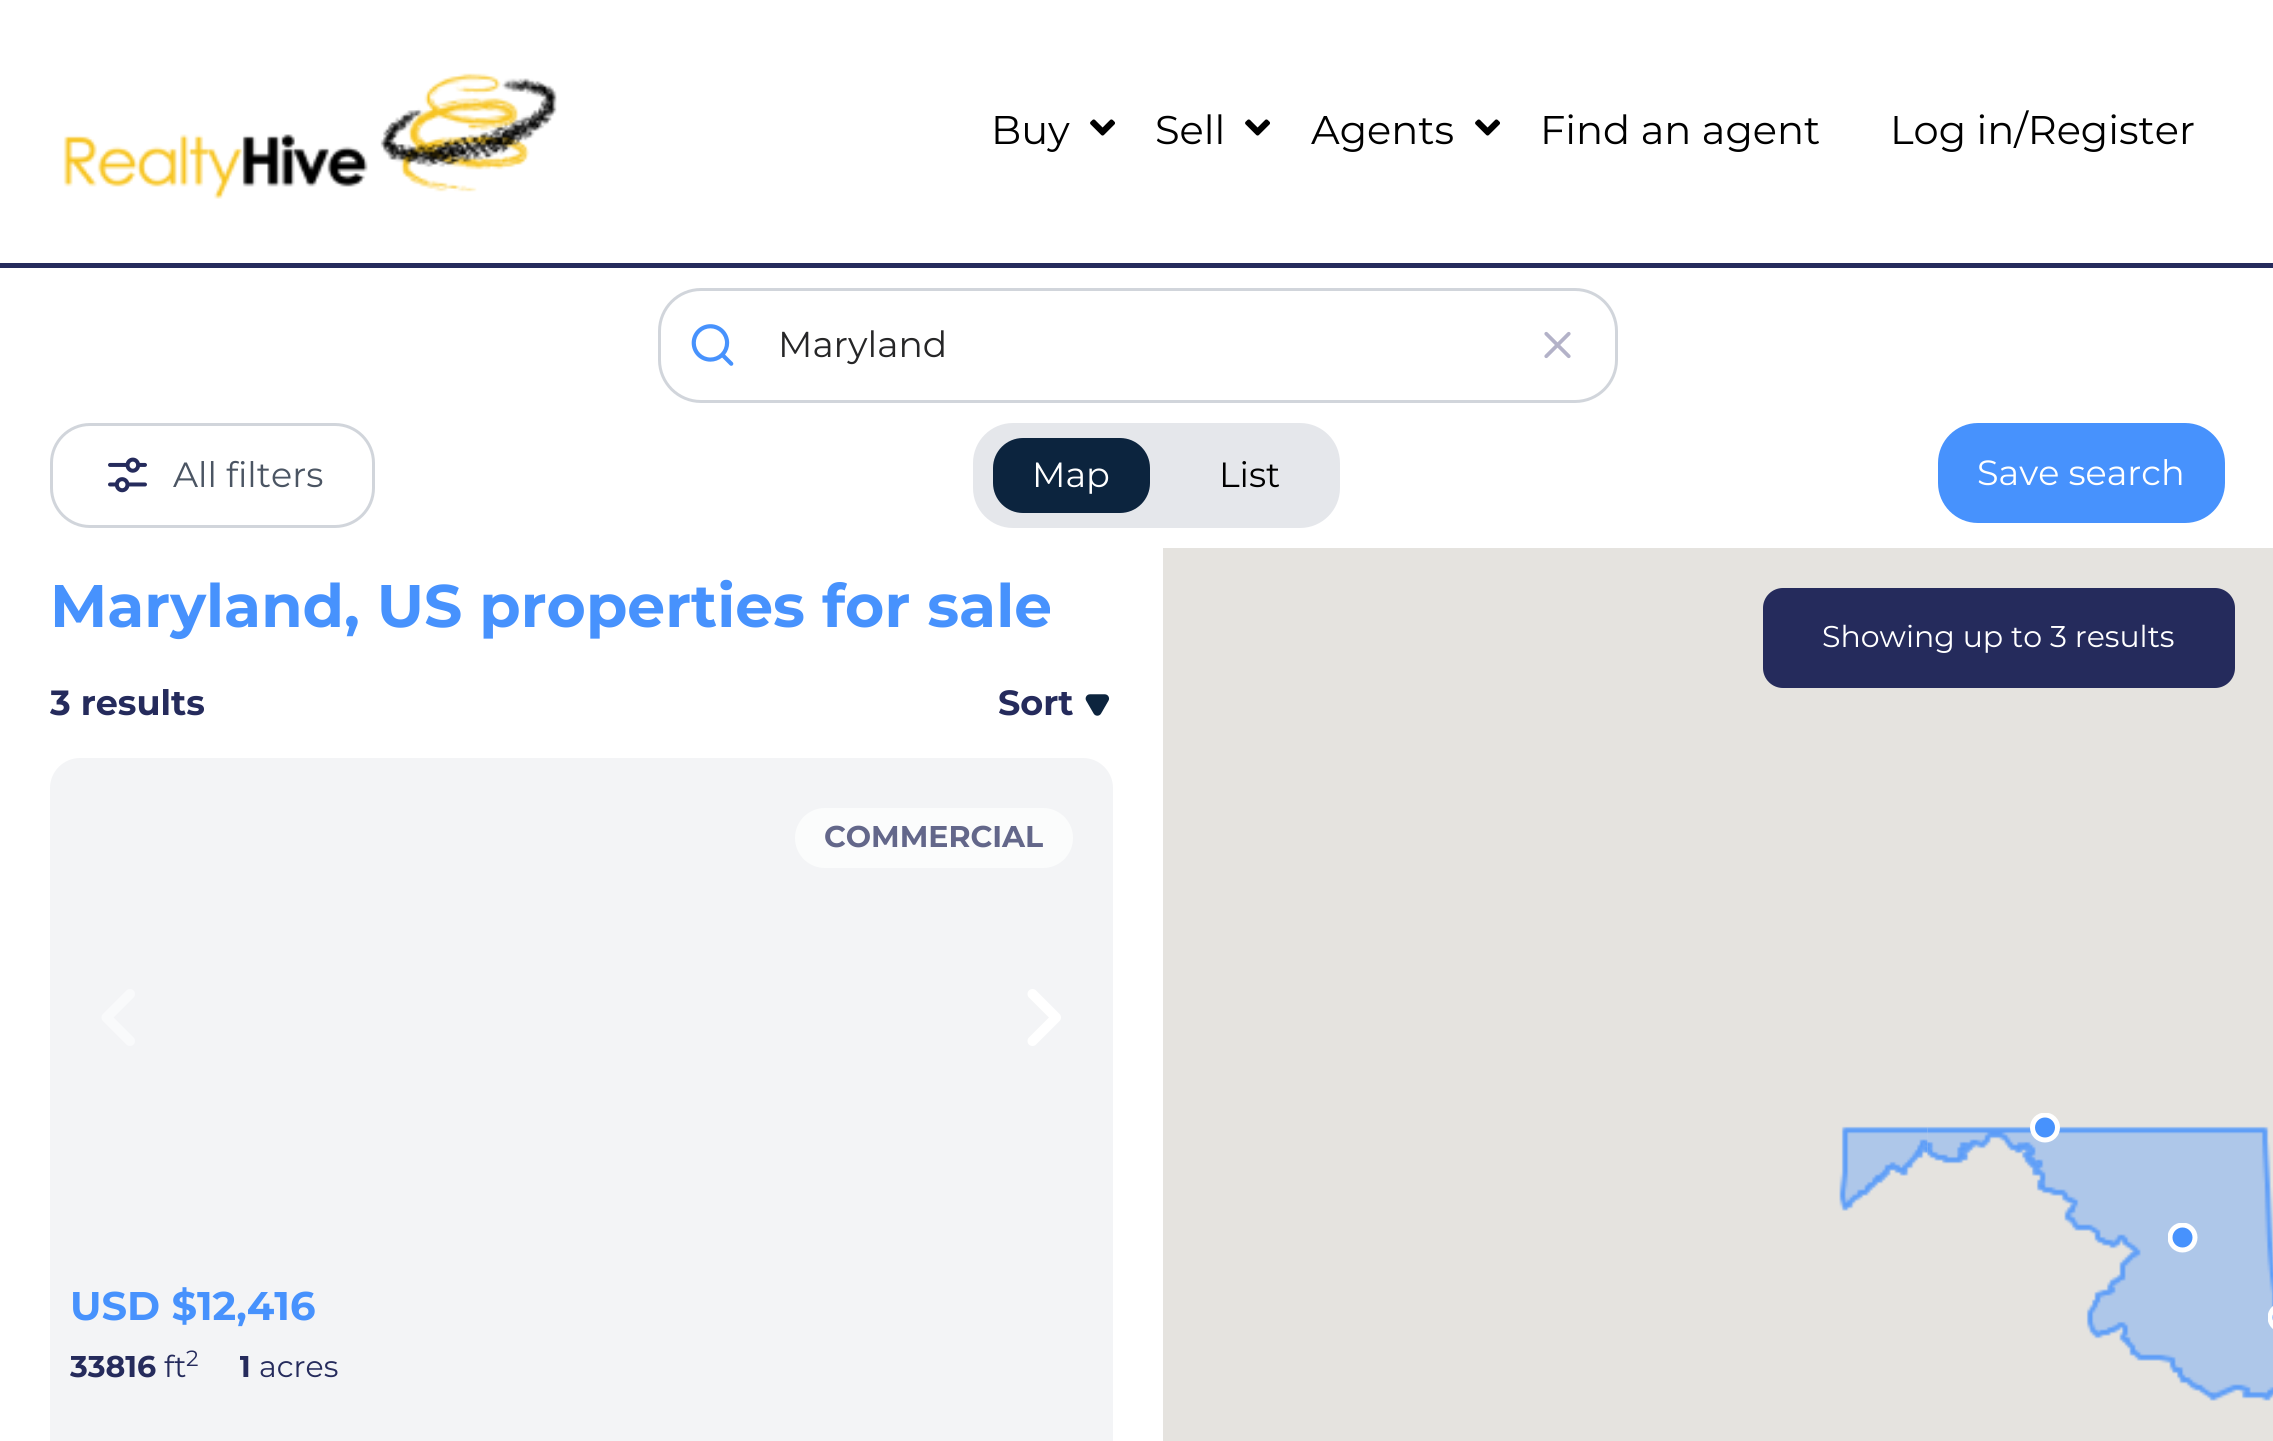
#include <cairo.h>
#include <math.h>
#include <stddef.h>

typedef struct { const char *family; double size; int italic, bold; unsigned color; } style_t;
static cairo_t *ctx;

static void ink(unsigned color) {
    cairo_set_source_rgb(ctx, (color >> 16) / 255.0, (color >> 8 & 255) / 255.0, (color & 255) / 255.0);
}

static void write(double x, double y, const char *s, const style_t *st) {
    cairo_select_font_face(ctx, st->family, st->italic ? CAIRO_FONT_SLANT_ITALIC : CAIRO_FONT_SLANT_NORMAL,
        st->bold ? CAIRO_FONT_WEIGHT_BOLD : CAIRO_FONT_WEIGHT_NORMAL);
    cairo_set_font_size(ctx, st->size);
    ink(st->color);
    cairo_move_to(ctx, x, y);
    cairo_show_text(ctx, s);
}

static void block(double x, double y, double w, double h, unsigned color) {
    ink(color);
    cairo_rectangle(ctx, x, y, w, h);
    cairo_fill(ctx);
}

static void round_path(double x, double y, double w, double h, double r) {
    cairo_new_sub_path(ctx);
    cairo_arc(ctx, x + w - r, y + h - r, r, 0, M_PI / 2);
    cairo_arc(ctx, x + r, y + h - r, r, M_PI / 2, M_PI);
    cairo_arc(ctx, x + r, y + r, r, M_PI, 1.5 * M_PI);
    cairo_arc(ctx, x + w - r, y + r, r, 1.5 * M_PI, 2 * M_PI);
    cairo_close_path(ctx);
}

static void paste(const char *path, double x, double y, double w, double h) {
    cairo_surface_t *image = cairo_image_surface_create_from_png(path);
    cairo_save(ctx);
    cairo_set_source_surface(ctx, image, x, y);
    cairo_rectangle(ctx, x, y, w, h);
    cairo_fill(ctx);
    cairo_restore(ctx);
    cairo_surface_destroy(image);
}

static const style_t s1 = {"Montserrat", 40, 0, 0, 0x000000};
static const style_t s2 = {"Montserrat", 36, 0, 0, 0x262627};
static const style_t s3 = {"Montserrat", 35, 0, 0, 0x4b5563};
static const style_t s4 = {"Montserrat", 35, 0, 0, 0xffffff};
static const style_t s5 = {"Montserrat", 35, 0, 0, 0x000000};
static const style_t s6 = {"Montserrat", 60, 0, 1, 0x4792fd};
static const style_t s7 = {"Montserrat", 35, 0, 1, 0x252b5c};
static const style_t s8 = {"Montserrat", 30, 0, 1, 0x63678a};
static const style_t s9 = {"Montserrat", 40, 0, 1, 0x4792fd};
static const style_t s10 = {"Montserrat", 30, 0, 1, 0x252b5c};
static const style_t s11 = {"Montserrat", 30, 0, 0, 0x252b5c};
static const style_t s12 = {"Montserrat", 22, 0, 0, 0x252b5c};
static const style_t s13 = {"Montserrat", 30, 0, 0, 0xffffff};

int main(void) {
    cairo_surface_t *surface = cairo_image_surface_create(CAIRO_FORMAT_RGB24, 2273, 1441);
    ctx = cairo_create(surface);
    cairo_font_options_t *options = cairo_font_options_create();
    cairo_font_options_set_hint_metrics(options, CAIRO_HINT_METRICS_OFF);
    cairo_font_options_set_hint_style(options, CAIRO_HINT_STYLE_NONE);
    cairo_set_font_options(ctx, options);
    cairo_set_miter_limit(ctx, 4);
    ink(0xffffff);
    cairo_paint(ctx);
    block(0, 263, 2273, 5, 0x252b5c);
    paste("pic1.png", 63, 73, 494, 126);
    write(991, 144, "Buy", &s1);
    paste("pic2.png", 1090, 119, 25, 17);
    write(1155, 144, "Sell", &s1);
    paste("pic2.png", 1245, 119, 25, 17);
    write(1311, 144, "Agents", &s1);
    paste("pic2.png", 1475, 119, 25, 17);
    write(1540, 144, "Find an agent", &s1);
    write(1890, 144, "Log in/Register", &s1);
    round_path(659.5, 289.5, 957, 112, 41.5);
    ink(0xd1d5db);
    cairo_set_line_width(ctx, 3);
    cairo_stroke(ctx);
    paste("pic3.png", 691, 324, 43, 42);
    write(778, 357, "Maryland", &s2);
    paste("pic4.png", 1544, 331, 27, 28);
    round_path(51.5, 424.5, 322, 102, 38.5);
    ink(0xd1d5db);
    cairo_stroke(ctx);
    paste("pic5.png", 108, 457, 39, 36);
    write(173, 487, "All filters", &s3);
    ink(0xe5e7eb);
    round_path(973, 423, 367, 105, 40);
    cairo_fill(ctx);
    ink(0x0c243e);
    round_path(993, 438, 157, 75, 30);
    cairo_fill(ctx);
    write(1032, 487, "Map", &s4);
    write(1219, 487, "List", &s5);
    ink(0x4792fd);
    round_path(1938, 423, 287, 100, 40);
    cairo_fill(ctx);
    write(1977, 485, "Save search", &s4);
    write(50, 627, "Maryland, US properties for sale", &s6);
    write(50, 715, "3 results", &s7);
    write(998, 715, "Sort", &s7);
    paste("pic6.png", 1085, 694, 25, 22);
    ink(0xf3f4f6);
    cairo_new_path(ctx);
    cairo_move_to(ctx, 80, 758);
    cairo_line_to(ctx, 1083, 758);
    cairo_curve_to(ctx, 1099.5, 758, 1113, 771.5, 1113, 788);
    cairo_line_to(ctx, 1113, 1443);
    cairo_line_to(ctx, 50, 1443);
    cairo_line_to(ctx, 50, 788);
    cairo_curve_to(ctx, 50, 771.5, 63.5, 758, 80, 758);
    cairo_close_path(ctx);
    cairo_fill(ctx);
    ink(0xfbfcfc);
    round_path(795, 808, 278, 60, 30);
    cairo_fill(ctx);
    write(824, 847, "COMMERCIAL", &s8);
    cairo_new_path(ctx);
    cairo_move_to(ctx, 130, 1041);
    cairo_line_to(ctx, 106.5, 1017.5);
    cairo_line_to(ctx, 130, 994);
    ink(0xf9fafb);
    cairo_set_line_width(ctx, 10);
    cairo_set_line_cap(ctx, CAIRO_LINE_CAP_ROUND);
    cairo_set_line_join(ctx, CAIRO_LINE_JOIN_ROUND);
    cairo_stroke(ctx);
    cairo_new_path(ctx);
    cairo_move_to(ctx, 1032.5, 994);
    cairo_line_to(ctx, 1056, 1017.5);
    cairo_line_to(ctx, 1032.5, 1041);
    ink(0xffffff);
    cairo_stroke(ctx);
    write(70, 1320, "USD $12,416", &s9);
    write(70, 1377, "33816", &s10);
    write(164, 1377, "ft", &s11);
    write(186, 1366, "2", &s12);
    cairo_save(ctx);
    cairo_rectangle(ctx, 240, 1348, 98, 40);
    cairo_clip(ctx);
    write(239, 1377, "1", &s10);
    cairo_restore(ctx);
    write(259, 1377, "acres", &s11);
    block(1163, 548, 1110, 893, 0xe5e3df);
    paste("pic7.png", 1839, 1126, 89, 85);
    paste("pic8.png", 1927, 1126, 346, 275);
    ink(0x4792fd);
    cairo_arc(ctx, 2045, 1127.5, 12.5, 0, 2 * M_PI);
    cairo_fill(ctx);
    cairo_save(ctx);
    cairo_rectangle(ctx, 2030, 1113, 30, 30);
    cairo_clip(ctx);
    cairo_arc(ctx, 2045, 1127.5, 12.5, 0, 2 * M_PI);
    ink(0xffffff);
    cairo_set_line_width(ctx, 5);
    cairo_set_line_cap(ctx, CAIRO_LINE_CAP_BUTT);
    cairo_set_line_join(ctx, CAIRO_LINE_JOIN_MITER);
    cairo_stroke(ctx);
    cairo_restore(ctx);
    cairo_arc(ctx, 2182.5, 1237.5, 12.5, 0, 2 * M_PI);
    cairo_fill(ctx);
    cairo_save(ctx);
    cairo_rectangle(ctx, 2168, 1223, 30, 30);
    cairo_clip(ctx);
    cairo_arc(ctx, 2182.5, 1237.5, 12.5, 0, 2 * M_PI);
    ink(0xffffff);
    cairo_set_line_width(ctx, 5);
    cairo_set_line_cap(ctx, CAIRO_LINE_CAP_BUTT);
    cairo_set_line_join(ctx, CAIRO_LINE_JOIN_MITER);
    cairo_stroke(ctx);
    cairo_restore(ctx);
    cairo_arc(ctx, 2282.5, 1317.5, 12.5, 0, 2 * M_PI);
    cairo_fill(ctx);
    cairo_save(ctx);
    cairo_rectangle(ctx, 2268, 1303, 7, 30);
    cairo_clip(ctx);
    cairo_arc(ctx, 2282.5, 1317.5, 12.5, 0, 2 * M_PI);
    ink(0xffffff);
    cairo_set_line_width(ctx, 5);
    cairo_set_line_cap(ctx, CAIRO_LINE_CAP_BUTT);
    cairo_set_line_join(ctx, CAIRO_LINE_JOIN_MITER);
    cairo_stroke(ctx);
    cairo_restore(ctx);
    ink(0x252b5c);
    round_path(1763, 588, 472, 100, 20);
    cairo_fill(ctx);
    write(1822, 647, "Showing up to 3 results", &s13);
    cairo_surface_write_to_png(surface, "screenshot.png");
    cairo_font_options_destroy(options);
    cairo_destroy(ctx);
    cairo_surface_destroy(surface);
    return 0;
}
